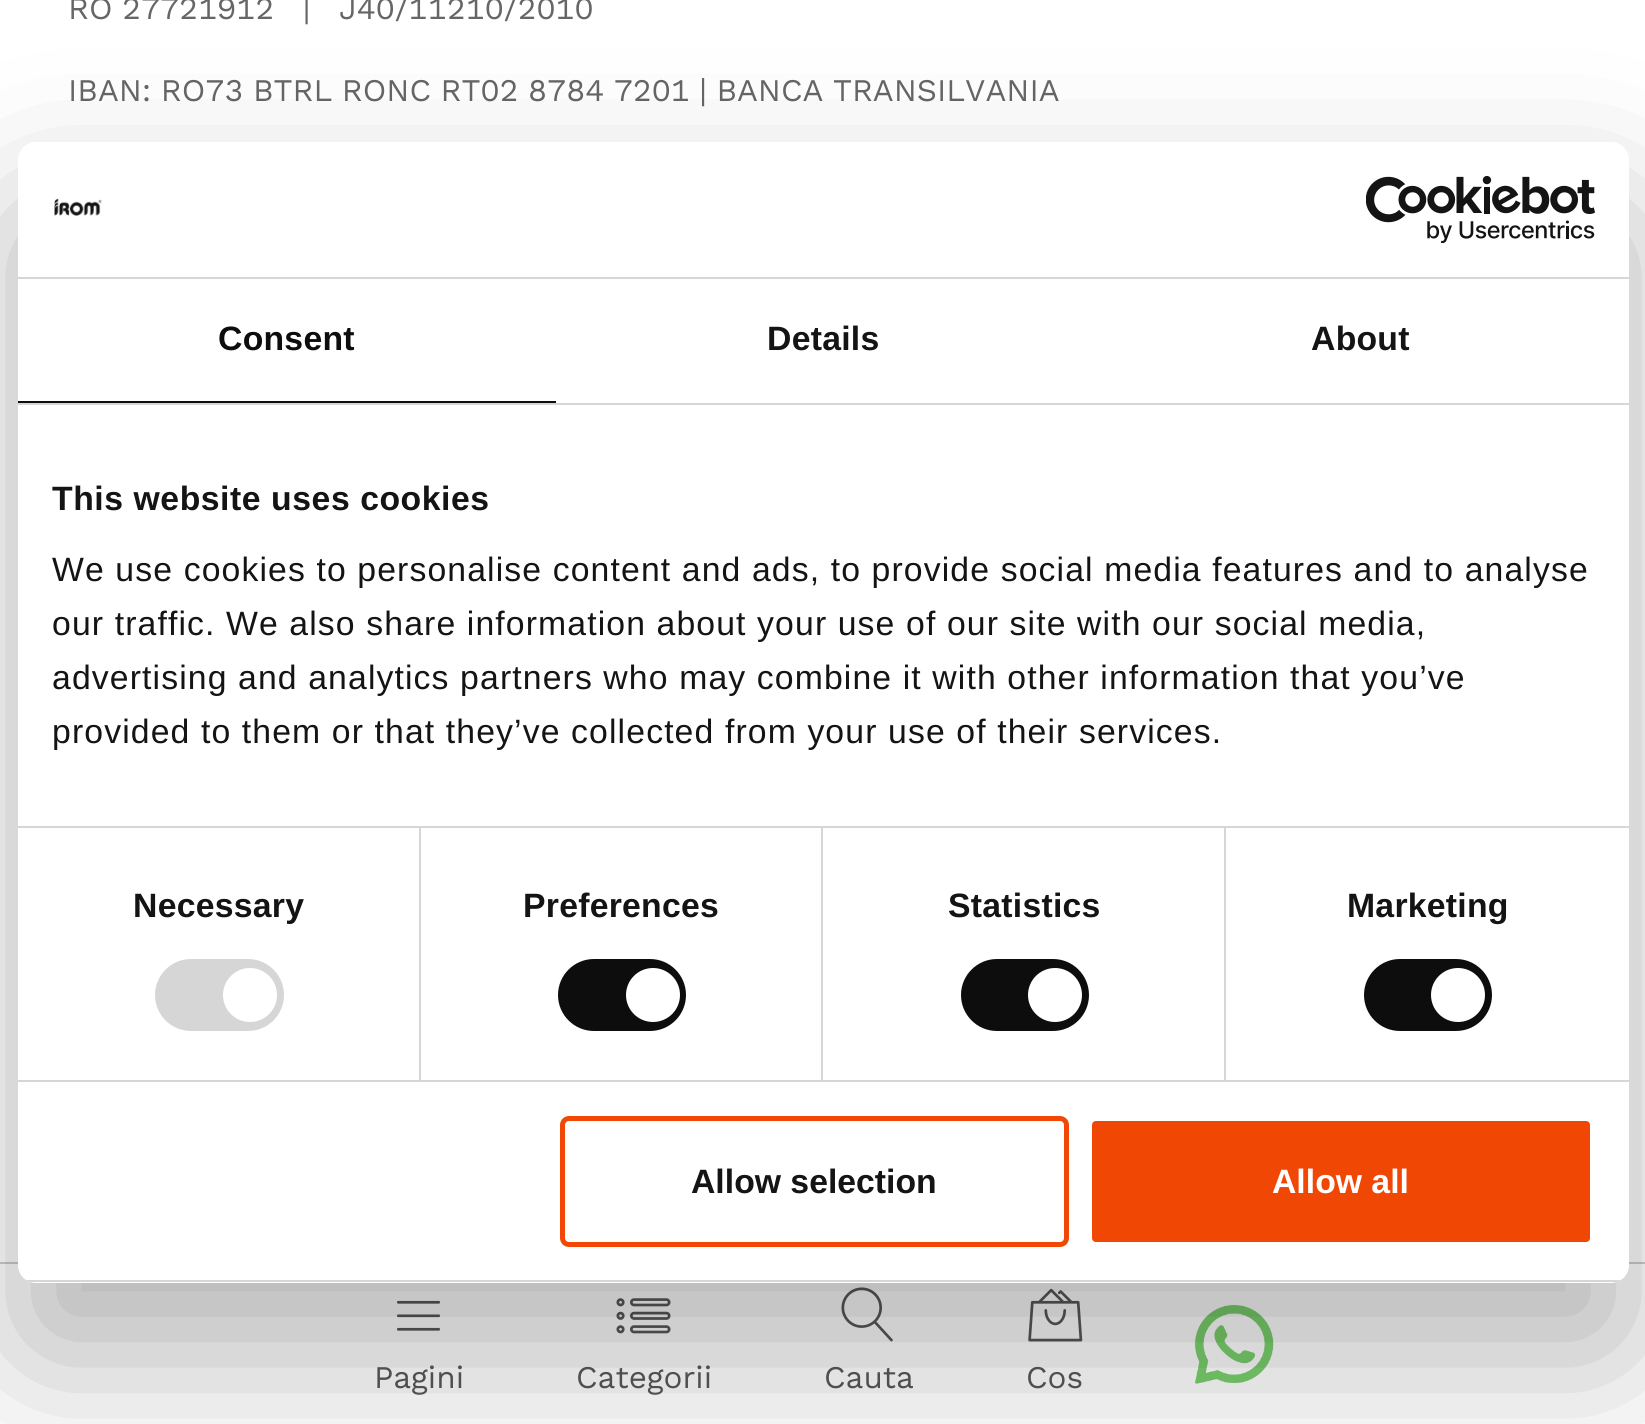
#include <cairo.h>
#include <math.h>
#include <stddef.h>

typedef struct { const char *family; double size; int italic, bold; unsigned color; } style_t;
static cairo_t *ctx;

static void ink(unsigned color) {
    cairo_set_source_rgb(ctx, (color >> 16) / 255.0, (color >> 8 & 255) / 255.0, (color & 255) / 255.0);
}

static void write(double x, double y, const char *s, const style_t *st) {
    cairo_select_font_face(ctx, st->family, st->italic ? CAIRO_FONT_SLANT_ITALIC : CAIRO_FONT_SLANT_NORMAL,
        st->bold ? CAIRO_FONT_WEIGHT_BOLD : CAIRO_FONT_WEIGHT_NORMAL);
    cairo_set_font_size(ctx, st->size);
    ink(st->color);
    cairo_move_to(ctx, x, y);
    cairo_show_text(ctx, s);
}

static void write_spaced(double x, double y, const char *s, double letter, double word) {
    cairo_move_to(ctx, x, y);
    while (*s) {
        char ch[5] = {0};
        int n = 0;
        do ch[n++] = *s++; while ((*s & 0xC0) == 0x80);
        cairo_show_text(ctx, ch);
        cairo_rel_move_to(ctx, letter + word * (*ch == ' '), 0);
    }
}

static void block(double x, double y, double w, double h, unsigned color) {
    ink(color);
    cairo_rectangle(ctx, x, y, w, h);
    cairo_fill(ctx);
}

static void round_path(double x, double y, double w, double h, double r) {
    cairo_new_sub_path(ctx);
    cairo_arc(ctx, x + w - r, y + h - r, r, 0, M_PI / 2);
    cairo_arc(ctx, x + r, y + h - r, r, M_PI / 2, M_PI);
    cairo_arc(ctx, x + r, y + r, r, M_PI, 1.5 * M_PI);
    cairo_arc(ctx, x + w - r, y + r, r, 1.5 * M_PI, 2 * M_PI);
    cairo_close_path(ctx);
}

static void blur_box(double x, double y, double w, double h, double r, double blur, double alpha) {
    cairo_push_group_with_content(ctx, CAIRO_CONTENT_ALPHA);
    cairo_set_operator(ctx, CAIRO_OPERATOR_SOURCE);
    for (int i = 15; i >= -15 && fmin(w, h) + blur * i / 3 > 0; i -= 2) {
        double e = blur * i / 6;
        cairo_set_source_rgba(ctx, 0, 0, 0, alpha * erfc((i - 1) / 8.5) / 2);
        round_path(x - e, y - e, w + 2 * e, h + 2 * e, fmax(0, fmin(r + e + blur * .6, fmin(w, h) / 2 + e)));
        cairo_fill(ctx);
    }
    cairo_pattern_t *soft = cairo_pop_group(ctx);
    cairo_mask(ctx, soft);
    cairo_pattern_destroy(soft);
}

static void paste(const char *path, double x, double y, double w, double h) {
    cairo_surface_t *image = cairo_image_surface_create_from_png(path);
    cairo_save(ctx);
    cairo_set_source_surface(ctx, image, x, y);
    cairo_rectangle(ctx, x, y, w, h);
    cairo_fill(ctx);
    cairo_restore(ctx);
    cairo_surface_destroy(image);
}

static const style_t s1 = {"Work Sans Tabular", 31.5, 0, 0, 0x666666};
static const style_t s2 = {"Work Sans", 31.5, 0, 0, 0x595959};
static const style_t s3 = {"Liberation Sans", 33.75, 0, 1, 0x141414};
static const style_t s4 = {"Liberation Sans", 33.75, 0, 1, 0xffffff};

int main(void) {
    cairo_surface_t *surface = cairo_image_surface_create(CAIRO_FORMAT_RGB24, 1645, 1424);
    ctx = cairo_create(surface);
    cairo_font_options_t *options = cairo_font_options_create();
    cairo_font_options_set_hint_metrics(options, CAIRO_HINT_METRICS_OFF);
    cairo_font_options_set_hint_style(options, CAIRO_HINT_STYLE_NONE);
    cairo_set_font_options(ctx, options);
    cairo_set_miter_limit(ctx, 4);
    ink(0xffffff);
    cairo_paint(ctx);
    write(68, 19, "RO 27721912   |   J40/11210/2010", &s1);
    write(68, 101, "IBAN: RO73 BTRL RONC RT02 8784 7201 | BANCA TRANSILVANIA", &s1);
    block(0, 1262, 1645, 2, 0xcccccc);
    paste("pic1.png", 396, 1300, 45, 31);
    write(374, 1388, "Pagini", &s2);
    paste("pic2.png", 616, 1298, 55, 36);
    write(576, 1388, "Categorii", &s2);
    paste("pic3.png", 841, 1287, 52, 55);
    write(824, 1388, "Cauta", &s2);
    paste("pic4.png", 1028, 1288, 55, 54);
    write(1026, 1388, "Cos", &s2);
    paste("pic5.png", 1194, 1305, 80, 79);
    ink(0x000000);
    blur_box(18, 214, 1611, 1141, 18, 76.5, 0.3);
    ink(0xffffff);
    round_path(18, 142, 1611, 1141, 18);
    cairo_fill(ctx);
    block(18, 277, 1611, 2, 0xd6d6d6);
    paste("pic6.png", 54, 198, 48, 18);
    paste("pic7.png", 1366, 176, 229, 67);
    block(18, 403, 1611, 2, 0xd6d6d6);
    block(18, 401, 538, 2, 0x0d0d0d);
    cairo_select_font_face(ctx, "Liberation Sans", CAIRO_FONT_SLANT_NORMAL, CAIRO_FONT_WEIGHT_BOLD);
    cairo_set_font_size(ctx, 33.75);
    write_spaced(218, 350, "Consent", 0.25, 0);
    ink(0x141414);
    write_spaced(767, 350, "Details", 0.25, 0);
    write_spaced(1311, 350, "About", 0.25, 0);
    block(18, 826, 1611, 2, 0xd6d6d6);
    ink(0x141414);
    write_spaced(52, 510, "This website uses cookies", 0.55, 0);
    cairo_select_font_face(ctx, "Liberation Sans", CAIRO_FONT_SLANT_NORMAL, CAIRO_FONT_WEIGHT_NORMAL);
    write_spaced(52, 581, "We use cookies to personalise content and ads, to provide social media features and to analyse", 1.12, 0);
    write_spaced(52, 635, "our traffic. We also share information about your use of our site with our social media,", 1.12, 0);
    write_spaced(52, 689, "advertising and analytics partners who may combine it with other information that you’ve", 1.12, 0);
    write_spaced(52, 743, "provided to them or that they’ve collected from your use of their services.", 1.12, 0);
    block(18, 1080, 1611, 2, 0xd6d6d6);
    block(419, 828, 2, 252, 0xd6d6d6);
    cairo_select_font_face(ctx, "Liberation Sans", CAIRO_FONT_SLANT_NORMAL, CAIRO_FONT_WEIGHT_BOLD);
    ink(0x141414);
    write_spaced(133, 917, "Necessary", 0.25, 0);
    ink(0xd6d6d6);
    round_path(155, 959, 129, 72, 36);
    cairo_fill(ctx);
    ink(0xffffff);
    cairo_arc(ctx, 250, 995, 27, 0, 2 * M_PI);
    cairo_fill(ctx);
    block(821, 828, 2, 252, 0xd6d6d6);
    ink(0x141414);
    write_spaced(523, 917, "Preferences", 0.25, 0);
    ink(0x0d0d0d);
    round_path(558, 959, 128, 72, 36);
    cairo_fill(ctx);
    ink(0xffffff);
    cairo_arc(ctx, 653, 995, 27, 0, 2 * M_PI);
    cairo_fill(ctx);
    block(1224, 828, 2, 252, 0xd6d6d6);
    ink(0x141414);
    write_spaced(948, 917, "Statistics", 0.25, 0);
    ink(0x0d0d0d);
    round_path(961, 959, 128, 72, 36);
    cairo_fill(ctx);
    ink(0xffffff);
    cairo_arc(ctx, 1055, 995, 27, 0, 2 * M_PI);
    cairo_fill(ctx);
    ink(0x141414);
    write_spaced(1347, 917, "Marketing", 0.25, 0);
    ink(0x0d0d0d);
    round_path(1364, 959, 128, 72, 36);
    cairo_fill(ctx);
    ink(0xffffff);
    cairo_arc(ctx, 1458, 995, 27, 0, 2 * M_PI);
    cairo_fill(ctx);
    cairo_save(ctx);
    round_path(18, 142, 1611, 1141, 18);
    cairo_clip(ctx);
    block(18, 1280, 1611, 2, 0xd6d6d6);
    cairo_restore(ctx);
    round_path(562.5, 1118.5, 504, 126, 6.5);
    ink(0xf14805);
    cairo_set_line_width(ctx, 5);
    cairo_stroke(ctx);
    write(691, 1193, "Allow selection", &s3);
    ink(0xf14705);
    round_path(1089.5, 1118.5, 503, 126, 6.5);
    cairo_fill_preserve(ctx);
    ink(0xffffff);
    cairo_stroke(ctx);
    write(1272, 1193, "Allow all", &s4);
    cairo_surface_write_to_png(surface, "screenshot.png");
    cairo_font_options_destroy(options);
    cairo_destroy(ctx);
    cairo_surface_destroy(surface);
    return 0;
}
